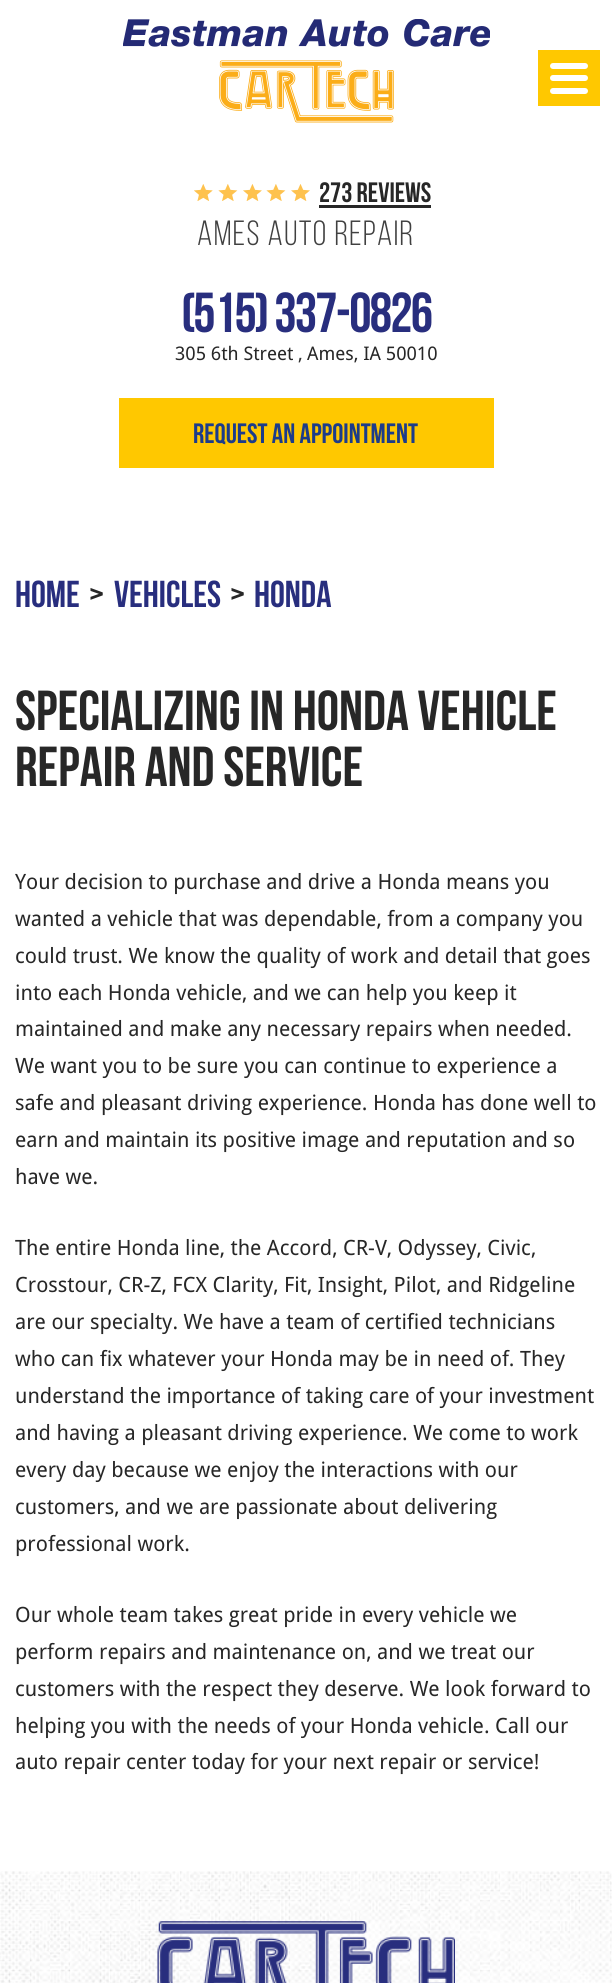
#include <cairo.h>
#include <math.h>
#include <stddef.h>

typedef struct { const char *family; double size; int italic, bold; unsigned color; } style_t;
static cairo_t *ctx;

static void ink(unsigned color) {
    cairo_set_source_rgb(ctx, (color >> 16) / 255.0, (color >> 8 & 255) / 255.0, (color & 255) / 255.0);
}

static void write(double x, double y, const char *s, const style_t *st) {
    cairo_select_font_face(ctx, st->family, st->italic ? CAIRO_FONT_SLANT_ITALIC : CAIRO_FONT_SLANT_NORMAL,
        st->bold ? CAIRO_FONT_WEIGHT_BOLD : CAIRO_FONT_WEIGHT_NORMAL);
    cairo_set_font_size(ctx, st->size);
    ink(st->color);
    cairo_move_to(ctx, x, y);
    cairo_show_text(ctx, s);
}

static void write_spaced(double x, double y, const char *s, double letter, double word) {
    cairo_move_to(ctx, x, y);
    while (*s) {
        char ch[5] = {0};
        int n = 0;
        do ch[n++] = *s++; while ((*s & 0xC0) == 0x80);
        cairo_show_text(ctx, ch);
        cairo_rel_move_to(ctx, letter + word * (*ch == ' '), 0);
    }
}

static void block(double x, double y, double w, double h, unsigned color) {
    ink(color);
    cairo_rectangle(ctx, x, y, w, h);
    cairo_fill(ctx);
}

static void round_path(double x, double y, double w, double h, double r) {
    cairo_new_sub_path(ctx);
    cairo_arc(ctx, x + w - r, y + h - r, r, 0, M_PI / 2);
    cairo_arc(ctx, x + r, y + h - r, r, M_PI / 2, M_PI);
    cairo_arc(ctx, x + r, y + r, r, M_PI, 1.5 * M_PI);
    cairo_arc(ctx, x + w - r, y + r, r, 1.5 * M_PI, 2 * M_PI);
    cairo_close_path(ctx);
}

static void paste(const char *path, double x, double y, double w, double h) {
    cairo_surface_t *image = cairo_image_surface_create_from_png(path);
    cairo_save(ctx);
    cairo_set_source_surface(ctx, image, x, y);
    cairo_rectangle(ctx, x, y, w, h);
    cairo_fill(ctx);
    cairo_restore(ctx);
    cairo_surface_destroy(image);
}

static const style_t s1 = {"Bebas Neue", 28, 0, 1, 0x272727};
static const style_t s2 = {"Droid Sans", 18.75, 0, 0, 0x272727};
static const style_t s3 = {"Droid Sans", 18.75, 0, 0, 0x333333};
static const style_t s4 = {"Bebas Neue", 28, 0, 1, 0x1c3c8a};
static const style_t s5 = {"Bebas Neue", 37.5, 0, 1, 0x282e7e};
static const style_t s6 = {"Bebas Neue", 37.5, 0, 1, 0x272727};
static const style_t s7 = {"Bebas Neue", 56.25, 0, 1, 0x272727};
static const style_t s8 = {"Droid Sans", 21.1, 0, 0, 0x272727};

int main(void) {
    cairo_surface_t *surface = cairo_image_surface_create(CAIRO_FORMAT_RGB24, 612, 1983);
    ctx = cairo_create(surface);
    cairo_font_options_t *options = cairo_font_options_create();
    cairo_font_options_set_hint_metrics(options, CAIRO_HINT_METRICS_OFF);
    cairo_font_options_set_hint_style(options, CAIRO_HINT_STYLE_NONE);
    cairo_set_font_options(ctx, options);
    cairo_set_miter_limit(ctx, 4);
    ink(0xffffff);
    cairo_paint(ctx);
    block(538, 50, 62, 56, 0xffc800);
    ink(0xffffff);
    round_path(550, 75, 38, 6, 3);
    cairo_fill(ctx);
    round_path(550, 63, 38, 6, 3);
    cairo_fill(ctx);
    round_path(550, 88, 38, 6, 3);
    cairo_fill(ctx);
    paste("pic1.png", 123, 19, 367, 104);
    paste("pic2.png", 194, 184, 116, 17);
    write(319, 202, "273 reviews", &s1);
    block(319, 205, 112, 3, 0x272727);
    cairo_select_font_face(ctx, "Bebas Neue", CAIRO_FONT_SLANT_NORMAL, CAIRO_FONT_WEIGHT_NORMAL);
    cairo_set_font_size(ctx, 35);
    ink(0x404040);
    write_spaced(197, 245, "Ames Auto Repair", 1.4, 0);
    cairo_select_font_face(ctx, "Bebas Neue", CAIRO_FONT_SLANT_NORMAL, CAIRO_FONT_WEIGHT_BOLD);
    cairo_set_font_size(ctx, 56.25);
    ink(0x282e7e);
    write_spaced(181, 332, "(515) 337-0826", -1.75, 0);
    write(175, 360, "305 6th Street", &s2);
    write(298, 360, ",", &s3);
    write(307, 360, "Ames, IA 50010", &s2);
    block(119, 398, 375, 70, 0xffc800);
    write(193, 443, "REQUEST AN APPOINTMENT", &s4);
    write(15, 607, "HOME", &s5);
    write(89, 607, ">", &s6);
    write(114, 607, "VEHICLES", &s5);
    write(230, 607, ">", &s6);
    write(254, 607, "HONDA", &s5);
    write(15, 730, "SPECIALIZING IN HONDA VEHICLE", &s7);
    write(15, 786, "REPAIR AND SERVICE", &s7);
    write(15, 889, "Your decision to purchase and drive a Honda means you", &s8);
    write(15, 926, "wanted a vehicle that was dependable, from a company you", &s8);
    write(15, 963, "could trust. We know the quality of work and detail that goes", &s8);
    write(15, 1000, "into each Honda vehicle, and we can help you keep it", &s8);
    write(15, 1036, "maintained and make any necessary repairs when needed.", &s8);
    write(15, 1073, "We want you to be sure you can continue to experience a", &s8);
    write(15, 1110, "safe and pleasant driving experience. Honda has done well to", &s8);
    write(15, 1147, "earn and maintain its positive image and reputation and so", &s8);
    write(15, 1184, "have we.", &s8);
    write(15, 1255, "The entire Honda line, the Accord, CR-V, Odyssey, Civic,", &s8);
    write(15, 1292, "Crosstour, CR-Z, FCX Clarity, Fit, Insight, Pilot, and Ridgeline", &s8);
    write(15, 1329, "are our specialty. We have a team of certified technicians", &s8);
    write(15, 1366, "who can fix whatever your Honda may be in need of. They", &s8);
    write(15, 1403, "understand the importance of taking care of your investment", &s8);
    write(15, 1440, "and having a pleasant driving experience. We come to work", &s8);
    write(15, 1477, "every day because we enjoy the interactions with our", &s8);
    write(15, 1514, "customers, and we are passionate about delivering", &s8);
    write(15, 1551, "professional work.", &s8);
    write(15, 1622, "Our whole team takes great pride in every vehicle we", &s8);
    write(15, 1659, "perform repairs and maintenance on, and we treat our", &s8);
    write(15, 1696, "customers with the respect they deserve. We look forward to", &s8);
    write(15, 1733, "helping you with the needs of your Honda vehicle. Call our", &s8);
    write(15, 1769, "auto repair center today for your next repair or service!", &s8);
    paste("pic3.png", 0, 1871, 612, 112);
    paste("pic4.png", 157, 1921, 298, 62);
    cairo_surface_write_to_png(surface, "screenshot.png");
    cairo_font_options_destroy(options);
    cairo_destroy(ctx);
    cairo_surface_destroy(surface);
    return 0;
}
